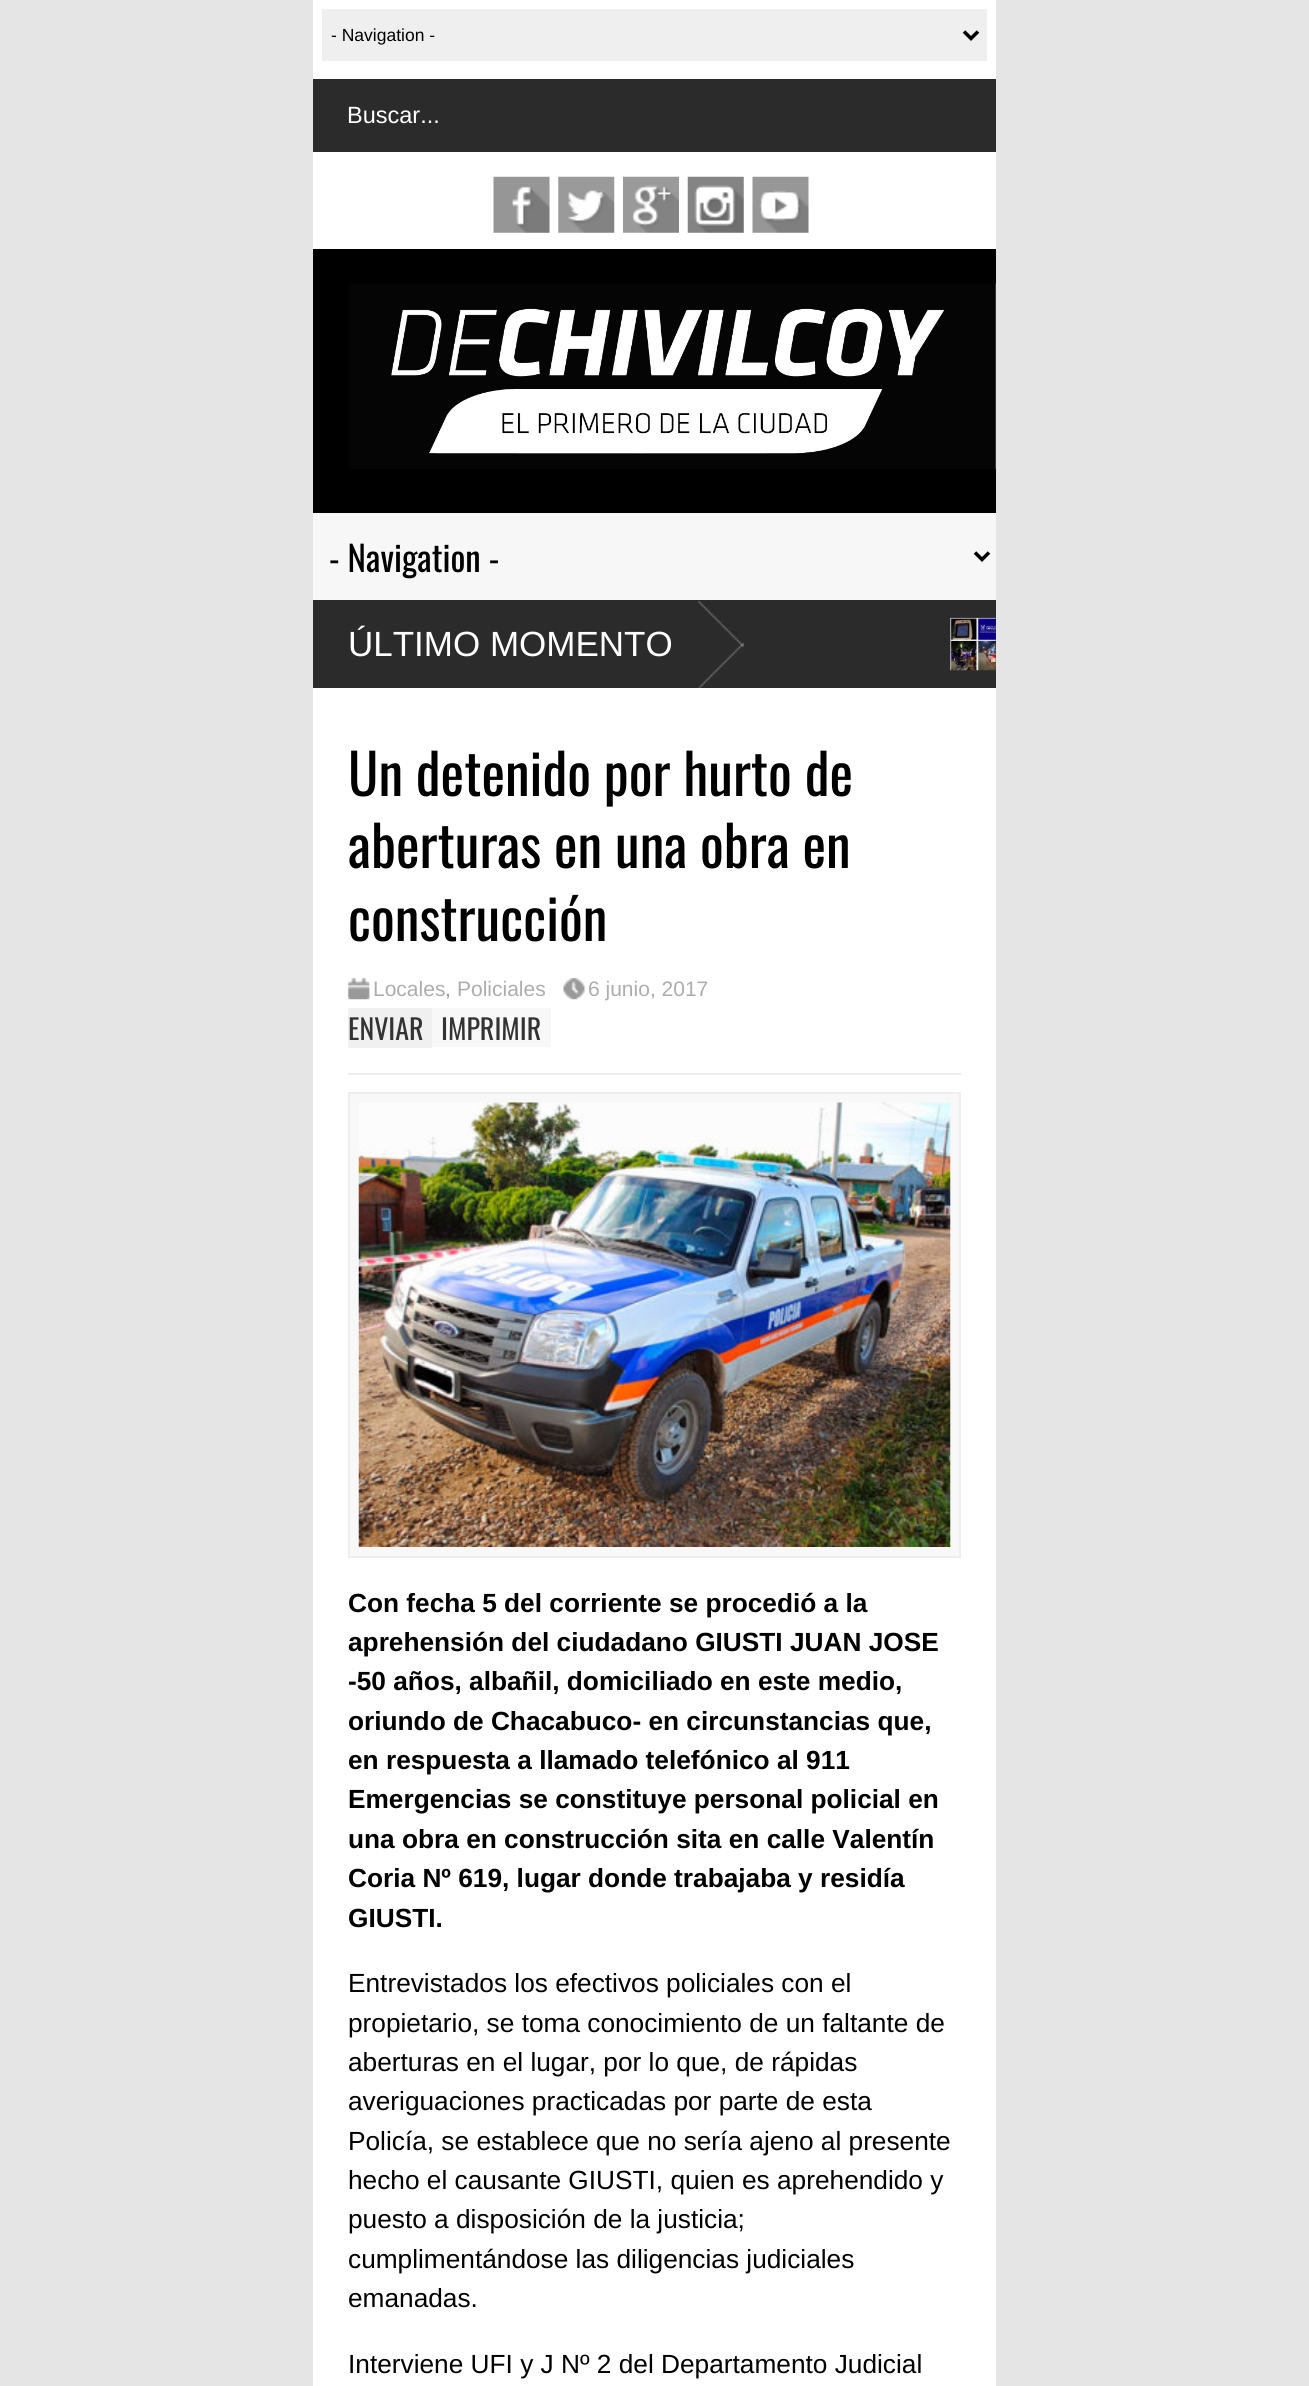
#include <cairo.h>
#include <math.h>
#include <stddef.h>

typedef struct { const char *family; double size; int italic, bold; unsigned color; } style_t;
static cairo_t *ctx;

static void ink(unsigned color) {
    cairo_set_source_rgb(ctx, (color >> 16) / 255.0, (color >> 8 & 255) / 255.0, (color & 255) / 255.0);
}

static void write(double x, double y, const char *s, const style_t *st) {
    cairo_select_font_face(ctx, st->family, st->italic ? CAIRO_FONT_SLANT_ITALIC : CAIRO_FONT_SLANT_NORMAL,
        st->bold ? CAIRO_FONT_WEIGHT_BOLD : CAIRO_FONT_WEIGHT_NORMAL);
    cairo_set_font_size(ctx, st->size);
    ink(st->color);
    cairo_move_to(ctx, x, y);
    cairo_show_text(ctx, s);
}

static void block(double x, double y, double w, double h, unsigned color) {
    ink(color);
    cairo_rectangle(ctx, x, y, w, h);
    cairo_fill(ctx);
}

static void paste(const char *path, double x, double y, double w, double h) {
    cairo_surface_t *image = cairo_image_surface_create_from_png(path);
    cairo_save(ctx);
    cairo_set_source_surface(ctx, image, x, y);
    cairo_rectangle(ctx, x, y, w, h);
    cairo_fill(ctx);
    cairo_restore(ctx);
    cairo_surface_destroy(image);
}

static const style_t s1 = {"Liberation Sans", 17.5, 0, 0, 0x000000};
static const style_t s2 = {"Liberation Sans", 23.5, 0, 0, 0xffffff};
static const style_t s3 = {"Oswald", 35, 0, 0, 0x000000};
static const style_t s4 = {"Liberation Sans", 35, 0, 0, 0xffffff};
static const style_t s5 = {"Oswald", 56, 0, 0, 0x000000};
static const style_t s6 = {"Liberation Sans", 21, 0, 0, 0xadadad};
static const style_t s7 = {"Liberation Sans", 21, 0, 0, 0x999999};
static const style_t s8 = {"Oswald", 28, 0, 0, 0x333333};
static const style_t s9 = {"Liberation Sans", 26.25, 0, 1, 0x000000};
static const style_t s10 = {"Liberation Sans", 26.25, 0, 0, 0x000000};

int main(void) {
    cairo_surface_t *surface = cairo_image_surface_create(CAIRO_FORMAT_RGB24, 1309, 2386);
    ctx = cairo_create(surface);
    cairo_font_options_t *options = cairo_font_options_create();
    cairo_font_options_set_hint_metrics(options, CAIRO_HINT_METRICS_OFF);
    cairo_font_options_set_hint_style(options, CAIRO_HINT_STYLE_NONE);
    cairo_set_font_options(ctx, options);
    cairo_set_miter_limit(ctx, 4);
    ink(0xe5e5e5);
    cairo_paint(ctx);
    block(313, 0, 683, 2386, 0xffffff);
    block(322, 9, 665, 52, 0xefefef);
    cairo_new_path(ctx);
    cairo_move_to(ctx, 964, 31.5);
    cairo_line_to(ctx, 971, 38.5);
    cairo_line_to(ctx, 978, 31.5);
    ink(0x000000);
    cairo_set_line_width(ctx, 3.5);
    cairo_stroke(ctx);
    write(331, 41, "- Navigation -", &s1);
    block(313, 79, 683, 73, 0x2b2b2b);
    write(347, 123, "Buscar...", &s2);
    paste("pic1.png", 493, 176, 57, 57);
    paste("pic2.png", 558, 176, 57, 57);
    paste("pic3.png", 623, 176, 56, 57);
    paste("pic4.png", 687, 176, 57, 57);
    paste("pic5.png", 752, 176, 57, 57);
    block(313, 249, 683, 264, 0x000000);
    paste("pic6.png", 349, 283, 647, 186);
    block(313, 513, 683, 87, 0xf7f7f7);
    cairo_new_path(ctx);
    cairo_move_to(ctx, 975, 552.5);
    cairo_line_to(ctx, 982, 559.5);
    cairo_line_to(ctx, 989, 552.5);
    ink(0x000000);
    cairo_stroke(ctx);
    write(329, 572, "- Navigation -", &s3);
    block(313, 600, 683, 88, 0x2b2b2b);
    paste("pic7.png", 698, 601, 46, 87);
    write(348, 656, "ÚLTIMO MOMENTO", &s4);
    paste("pic8.png", 950, 617, 46, 54);
    write(348, 796, "Un detenido por hurto de", &s5);
    write(348, 868, "aberturas en una obra en", &s5);
    write(348, 941, "construcción", &s5);
    block(348, 1073, 613, 2, 0xeeeeee);
    paste("pic9.png", 348, 978, 22, 22);
    write(373, 996, "Locales", &s6);
    write(445, 996, ",", &s7);
    write(457, 996, "Policiales", &s6);
    paste("pic10.png", 563, 978, 22, 22);
    write(588, 996, "6 junio, 2017", &s6);
    block(348, 1008, 84, 40, 0xf0f0f0);
    write(348, 1040, "ENVIAR", &s8);
    block(432, 1008, 119, 39, 0xf8f8f8);
    write(441, 1040, "IMPRIMIR", &s8);
    ink(0xf8f8f8);
    cairo_rectangle(ctx, 349, 1093, 611, 464);
    cairo_fill_preserve(ctx);
    ink(0xeeeeee);
    cairo_set_line_width(ctx, 2);
    cairo_stroke(ctx);
    paste("pic11.png", 358, 1102, 593, 445);
    write(348, 1612, "Con fecha 5 del corriente se procedió a la", &s9);
    write(348, 1651, "aprehensión del ciudadano GIUSTI JUAN JOSE", &s9);
    write(348, 1690, "-50 años, albañil, domiciliado en este medio,", &s9);
    write(348, 1730, "oriundo de Chacabuco- en circunstancias que,", &s9);
    write(348, 1769, "en respuesta a llamado telefónico al 911", &s9);
    write(348, 1808, "Emergencias se constituye personal policial en", &s9);
    write(348, 1848, "una obra en construcción sita en calle Valentín", &s9);
    write(348, 1887, "Coria Nº 619, lugar donde trabajaba y residía", &s9);
    write(348, 1927, "GIUSTI.", &s9);
    write(348, 1992, "Entrevistados los efectivos policiales con el", &s10);
    write(348, 2032, "propietario, se toma conocimiento de un faltante de", &s10);
    write(348, 2071, "aberturas en el lugar, por lo que, de rápidas", &s10);
    write(348, 2110, "averiguaciones practicadas por parte de esta", &s10);
    write(348, 2150, "Policía, se establece que no sería ajeno al presente", &s10);
    write(348, 2189, "hecho el causante GIUSTI, quien es aprehendido y", &s10);
    write(348, 2228, "puesto a disposición de la justicia;", &s10);
    write(348, 2268, "cumplimentándose las diligencias judiciales", &s10);
    write(348, 2307, "emanadas.", &s10);
    write(348, 2373, "Interviene UFI y J Nº 2 del Departamento Judicial", &s10);
    cairo_surface_write_to_png(surface, "screenshot.png");
    cairo_font_options_destroy(options);
    cairo_destroy(ctx);
    cairo_surface_destroy(surface);
    return 0;
}
